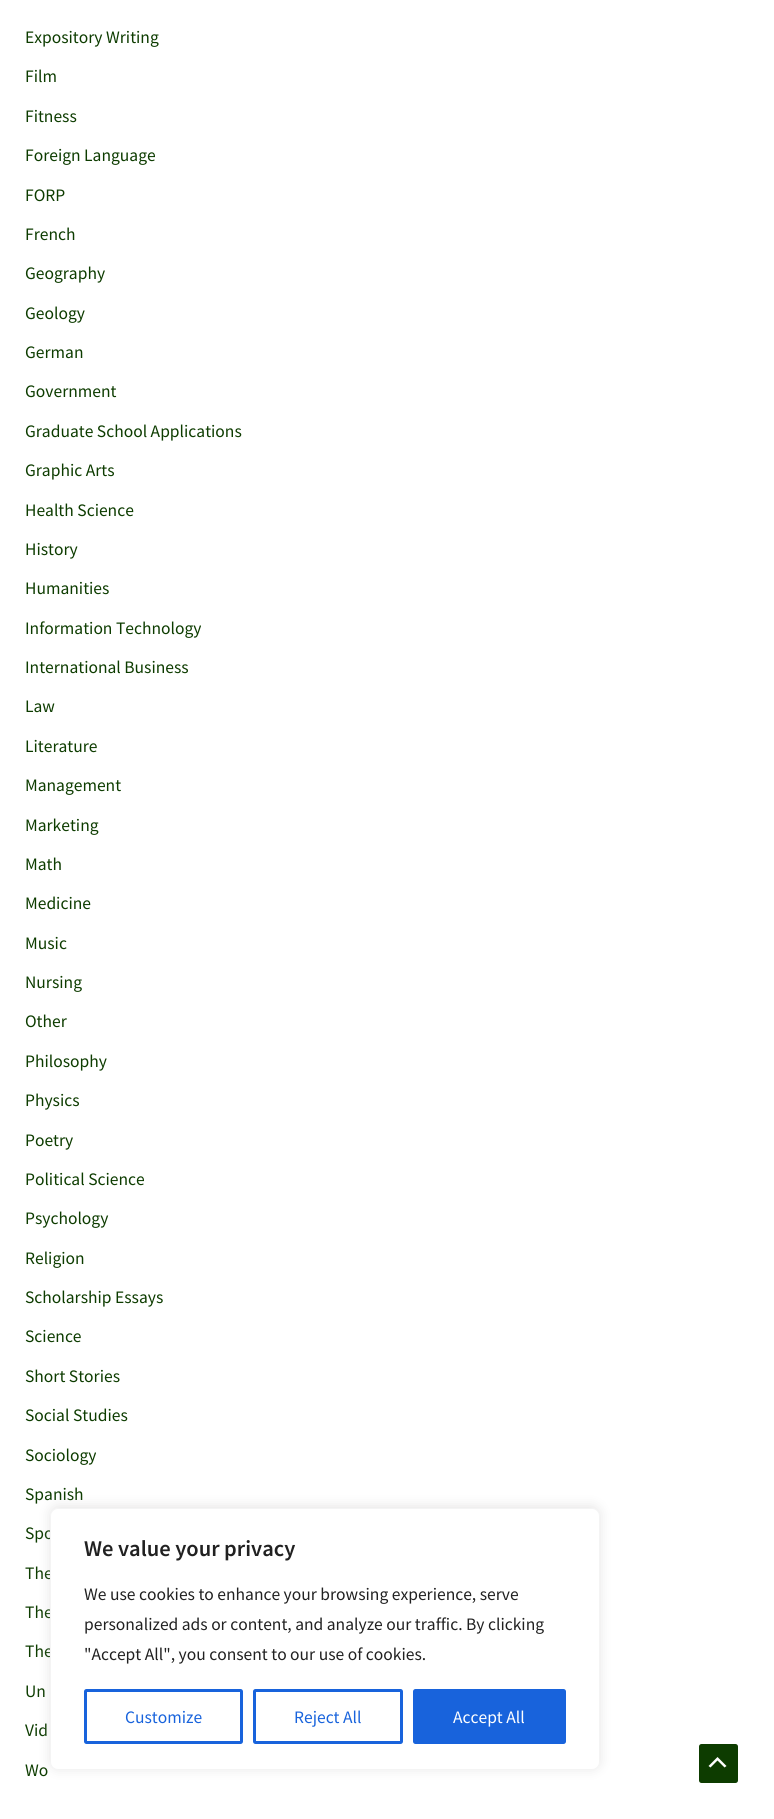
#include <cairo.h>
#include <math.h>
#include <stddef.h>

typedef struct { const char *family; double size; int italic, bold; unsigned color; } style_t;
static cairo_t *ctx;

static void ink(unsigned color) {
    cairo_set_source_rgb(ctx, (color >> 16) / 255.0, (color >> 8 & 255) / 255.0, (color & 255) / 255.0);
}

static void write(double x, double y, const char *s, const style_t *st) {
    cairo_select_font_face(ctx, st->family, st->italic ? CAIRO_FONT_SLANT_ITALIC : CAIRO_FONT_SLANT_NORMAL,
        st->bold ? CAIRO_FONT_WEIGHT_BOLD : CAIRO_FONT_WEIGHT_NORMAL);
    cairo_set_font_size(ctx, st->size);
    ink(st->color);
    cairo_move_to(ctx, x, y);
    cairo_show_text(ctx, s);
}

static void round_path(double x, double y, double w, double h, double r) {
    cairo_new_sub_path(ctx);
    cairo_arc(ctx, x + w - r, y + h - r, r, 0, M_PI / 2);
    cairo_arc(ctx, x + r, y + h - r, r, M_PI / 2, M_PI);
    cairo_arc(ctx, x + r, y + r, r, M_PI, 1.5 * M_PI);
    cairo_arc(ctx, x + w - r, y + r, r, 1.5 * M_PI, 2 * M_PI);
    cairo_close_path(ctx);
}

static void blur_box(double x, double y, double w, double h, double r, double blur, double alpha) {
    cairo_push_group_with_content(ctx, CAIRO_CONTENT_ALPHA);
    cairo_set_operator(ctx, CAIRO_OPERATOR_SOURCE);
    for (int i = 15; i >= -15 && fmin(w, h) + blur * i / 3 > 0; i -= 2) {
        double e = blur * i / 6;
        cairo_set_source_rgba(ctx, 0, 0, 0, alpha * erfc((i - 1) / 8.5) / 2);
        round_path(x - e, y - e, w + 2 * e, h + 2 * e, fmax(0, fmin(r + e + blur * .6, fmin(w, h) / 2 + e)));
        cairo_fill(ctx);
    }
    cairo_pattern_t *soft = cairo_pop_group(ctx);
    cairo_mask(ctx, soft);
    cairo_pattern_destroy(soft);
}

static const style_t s1 = {"Source Sans Pro", 17.5, 0, 0, 0x0d3c00};
static const style_t s2 = {"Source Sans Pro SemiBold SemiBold", 22.5, 0, 0, 0x212121};
static const style_t s3 = {"Source Sans Pro", 17.5, 0, 0, 0x212121};
static const style_t s4 = {"Source Sans Pro", 17.5, 0, 0, 0x1863dc};
static const style_t s5 = {"Source Sans Pro", 17.5, 0, 0, 0xffffff};

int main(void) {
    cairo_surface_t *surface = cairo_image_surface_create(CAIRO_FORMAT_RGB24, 774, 1819);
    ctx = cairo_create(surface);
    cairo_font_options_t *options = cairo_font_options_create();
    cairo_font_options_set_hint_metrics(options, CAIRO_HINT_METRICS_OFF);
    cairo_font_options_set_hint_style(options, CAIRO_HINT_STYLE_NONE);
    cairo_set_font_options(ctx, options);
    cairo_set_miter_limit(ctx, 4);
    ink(0xffffff);
    cairo_paint(ctx);
    write(25, 43, "Expository Writing", &s1);
    write(25, 82, "Film", &s1);
    write(25, 122, "Fitness", &s1);
    write(25, 161, "Foreign Language", &s1);
    write(25, 201, "FORP", &s1);
    write(25, 240, "French", &s1);
    write(25, 279, "Geography", &s1);
    write(25, 319, "Geology", &s1);
    write(25, 358, "German", &s1);
    write(25, 397, "Government", &s1);
    write(25, 437, "Graduate School Applications", &s1);
    write(25, 476, "Graphic Arts", &s1);
    write(25, 516, "Health Science", &s1);
    write(25, 555, "History", &s1);
    write(25, 594, "Humanities", &s1);
    write(25, 634, "Information Technology", &s1);
    write(25, 673, "International Business", &s1);
    write(25, 712, "Law", &s1);
    write(25, 752, "Literature", &s1);
    write(25, 791, "Management", &s1);
    write(25, 831, "Marketing", &s1);
    write(25, 870, "Math", &s1);
    write(25, 909, "Medicine", &s1);
    write(25, 949, "Music", &s1);
    write(25, 988, "Nursing", &s1);
    write(25, 1027, "Other", &s1);
    write(25, 1067, "Philosophy", &s1);
    write(25, 1106, "Physics", &s1);
    write(25, 1146, "Poetry", &s1);
    write(25, 1185, "Political Science", &s1);
    write(25, 1224, "Psychology", &s1);
    write(25, 1264, "Religion", &s1);
    write(25, 1303, "Scholarship Essays", &s1);
    write(25, 1342, "Science", &s1);
    write(25, 1382, "Short Stories", &s1);
    write(25, 1421, "Social Studies", &s1);
    write(25, 1461, "Sociology", &s1);
    write(25, 1500, "Spanish", &s1);
    write(25, 1539, "Spo", &s1);
    write(25, 1579, "The", &s1);
    write(25, 1618, "The", &s1);
    write(25, 1657, "The", &s1);
    write(25, 1697, "Un", &s1);
    write(25, 1736, "Vid", &s1);
    write(25, 1776, "Wo", &s1);
    ink(0xacabab);
    blur_box(50, 1506, 550, 263, 8, 6, 0.3);
    ink(0xffffff);
    round_path(50.5, 1508.5, 549, 261, 7.5);
    cairo_fill_preserve(ctx);
    ink(0xf4f4f4);
    cairo_set_line_width(ctx, 1);
    cairo_stroke(ctx);
    write(84, 1556, "We value your privacy", &s2);
    write(84, 1600, "We use cookies to enhance your browsing experience, serve", &s3);
    write(84, 1630, "personalized ads or content, and analyze our traffic. By clicking", &s3);
    write(84, 1660, "\"Accept All\", you consent to our use of cookies.", &s3);
    round_path(85.5, 1690.5, 156, 52, 1);
    ink(0x1863dc);
    cairo_set_line_width(ctx, 3);
    cairo_stroke(ctx);
    write(125, 1723, "Customize", &s4);
    round_path(254.5, 1690.5, 147, 52, 1);
    cairo_stroke(ctx);
    write(294, 1723, "Reject All", &s4);
    round_path(414.5, 1690.5, 150, 52, 1);
    cairo_fill_preserve(ctx);
    cairo_stroke(ctx);
    write(453, 1723, "Accept All", &s5);
    ink(0x0d3c00);
    round_path(699, 1744, 39, 39, 2.5);
    cairo_fill(ctx);
    ink(0xffffff);
    cairo_new_path(ctx);
    cairo_move_to(ctx, 726.5, 1766);
    cairo_line_to(ctx, 717.5, 1757);
    cairo_line_to(ctx, 708.5, 1766);
    cairo_line_to(ctx, 710.5, 1767.5);
    cairo_line_to(ctx, 717.5, 1760.5);
    cairo_line_to(ctx, 724.5, 1767.5);
    cairo_close_path(ctx);
    cairo_fill(ctx);
    cairo_surface_write_to_png(surface, "screenshot.png");
    cairo_font_options_destroy(options);
    cairo_destroy(ctx);
    cairo_surface_destroy(surface);
    return 0;
}
